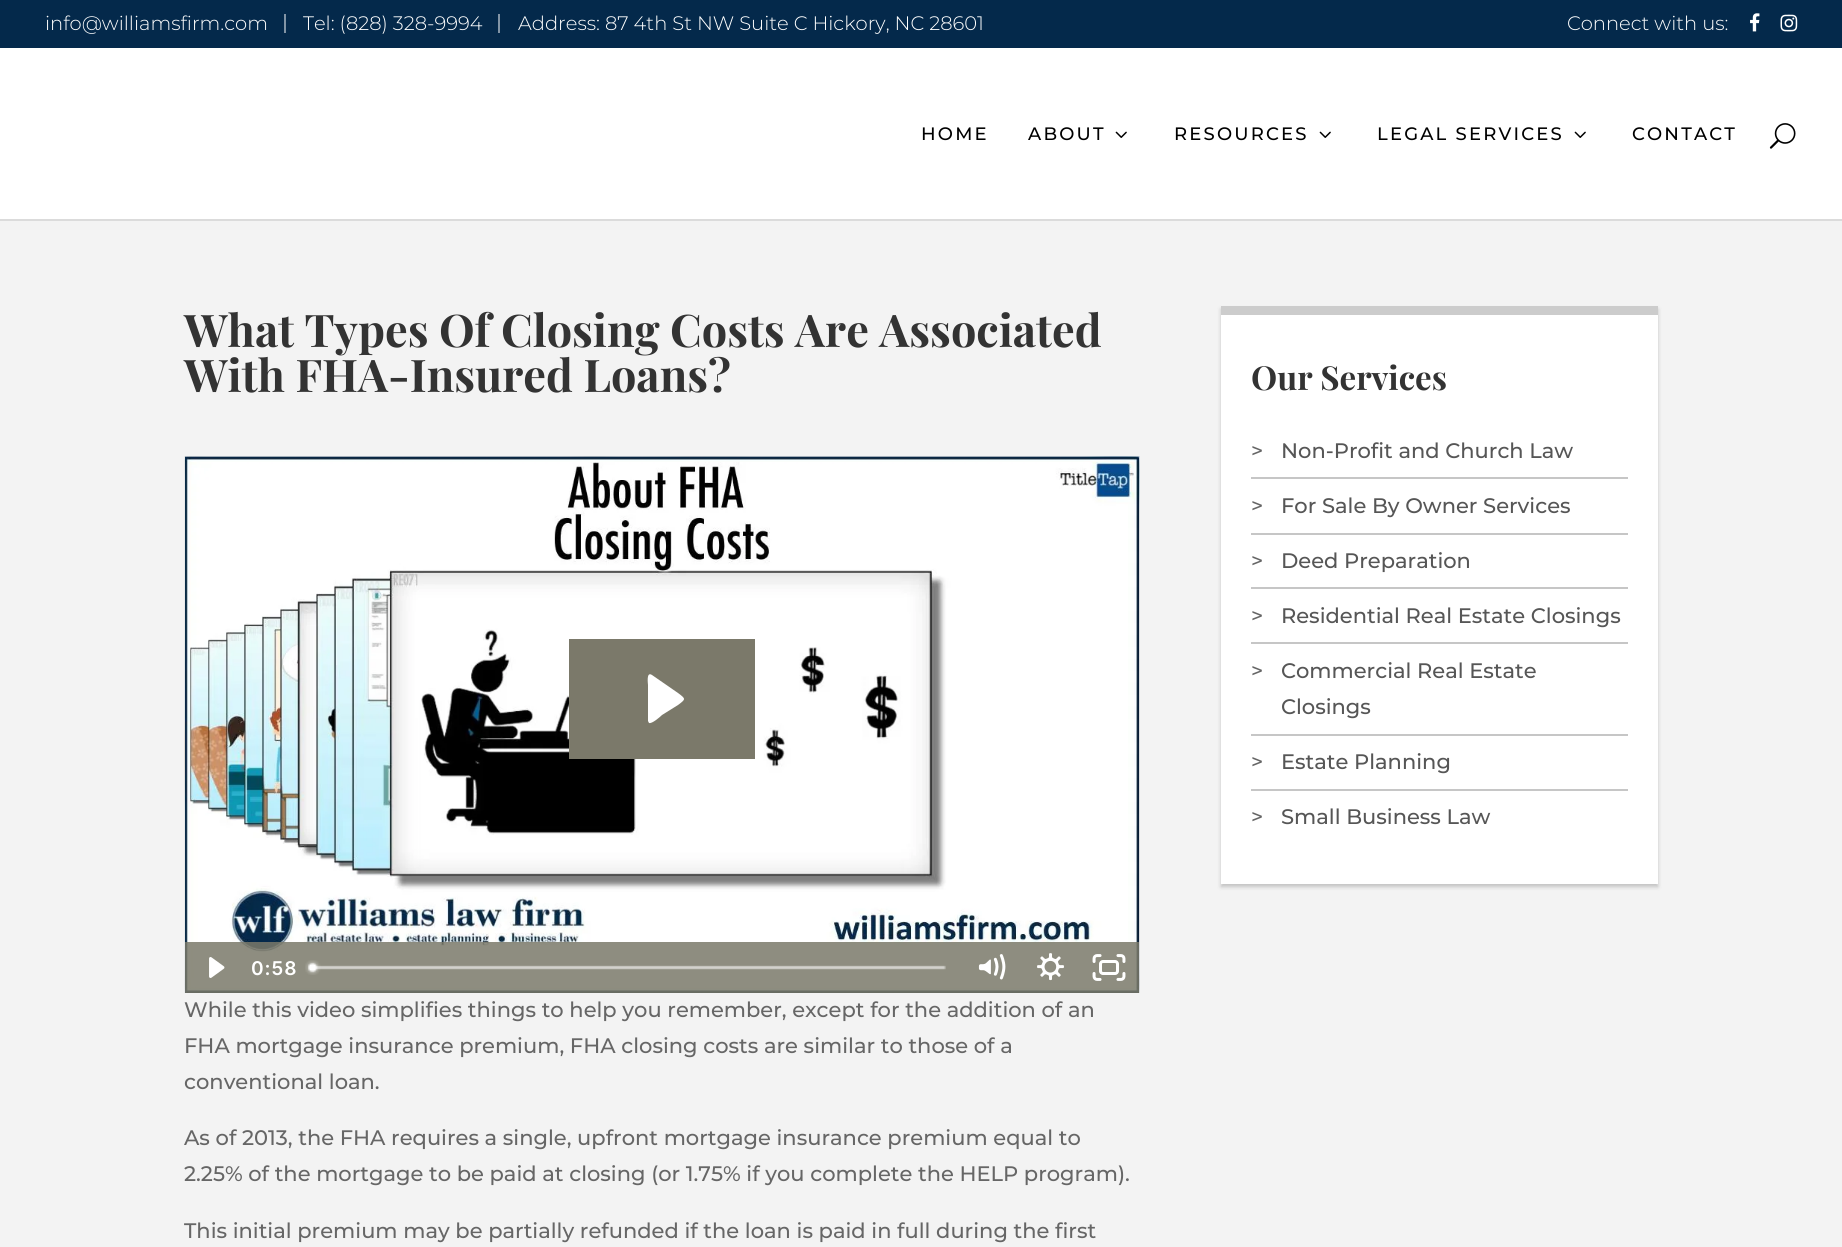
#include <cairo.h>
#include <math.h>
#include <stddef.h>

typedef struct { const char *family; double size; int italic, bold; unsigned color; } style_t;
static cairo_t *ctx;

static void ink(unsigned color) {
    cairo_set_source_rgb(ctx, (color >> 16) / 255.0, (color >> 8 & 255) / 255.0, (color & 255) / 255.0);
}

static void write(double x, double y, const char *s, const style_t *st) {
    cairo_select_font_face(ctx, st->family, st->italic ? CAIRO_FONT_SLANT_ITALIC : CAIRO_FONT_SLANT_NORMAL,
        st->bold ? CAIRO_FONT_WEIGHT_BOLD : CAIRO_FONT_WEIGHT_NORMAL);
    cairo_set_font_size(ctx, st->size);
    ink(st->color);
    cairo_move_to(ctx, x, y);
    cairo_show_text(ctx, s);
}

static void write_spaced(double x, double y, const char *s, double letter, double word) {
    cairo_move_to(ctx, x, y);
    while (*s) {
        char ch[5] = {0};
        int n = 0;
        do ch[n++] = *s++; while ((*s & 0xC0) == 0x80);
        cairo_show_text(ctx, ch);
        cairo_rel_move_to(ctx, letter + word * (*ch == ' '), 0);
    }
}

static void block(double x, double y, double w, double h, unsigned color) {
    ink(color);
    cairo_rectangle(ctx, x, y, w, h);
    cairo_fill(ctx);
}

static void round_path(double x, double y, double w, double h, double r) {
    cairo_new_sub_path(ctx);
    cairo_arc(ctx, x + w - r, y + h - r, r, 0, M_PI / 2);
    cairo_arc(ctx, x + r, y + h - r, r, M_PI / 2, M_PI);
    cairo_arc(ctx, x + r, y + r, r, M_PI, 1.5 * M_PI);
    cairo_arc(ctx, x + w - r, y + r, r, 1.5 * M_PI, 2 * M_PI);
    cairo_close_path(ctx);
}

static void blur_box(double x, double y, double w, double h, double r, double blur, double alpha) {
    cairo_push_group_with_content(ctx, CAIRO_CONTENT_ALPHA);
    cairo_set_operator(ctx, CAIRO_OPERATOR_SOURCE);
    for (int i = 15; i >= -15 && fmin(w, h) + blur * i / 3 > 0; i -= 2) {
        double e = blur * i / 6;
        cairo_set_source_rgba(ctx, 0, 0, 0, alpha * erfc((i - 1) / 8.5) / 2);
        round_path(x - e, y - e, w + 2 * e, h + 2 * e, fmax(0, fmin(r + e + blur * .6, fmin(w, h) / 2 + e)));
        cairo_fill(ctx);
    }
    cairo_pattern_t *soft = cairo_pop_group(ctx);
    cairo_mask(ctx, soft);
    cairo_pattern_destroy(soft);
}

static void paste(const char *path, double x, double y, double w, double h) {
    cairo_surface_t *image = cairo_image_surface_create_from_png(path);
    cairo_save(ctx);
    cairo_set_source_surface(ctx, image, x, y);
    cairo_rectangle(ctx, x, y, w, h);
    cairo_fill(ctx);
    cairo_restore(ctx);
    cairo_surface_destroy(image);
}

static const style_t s1 = {"Montserrat Light", 19.5, 0, 0, 0xffffff};
static const style_t s2 = {"Playfair Display", 45, 0, 1, 0x333333};
static const style_t s3 = {"Montserrat Medium", 21, 0, 0, 0x666666};
static const style_t s4 = {"Playfair Display", 33, 0, 1, 0x333333};
static const style_t s5 = {"Montserrat Medium", 21, 0, 0, 0x565656};

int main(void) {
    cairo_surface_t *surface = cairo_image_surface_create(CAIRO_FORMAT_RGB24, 1842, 1247);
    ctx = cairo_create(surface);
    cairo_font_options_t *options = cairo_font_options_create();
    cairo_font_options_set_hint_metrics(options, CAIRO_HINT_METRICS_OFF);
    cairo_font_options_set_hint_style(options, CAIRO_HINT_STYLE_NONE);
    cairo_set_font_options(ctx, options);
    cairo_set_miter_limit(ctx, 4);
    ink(0xffffff);
    cairo_paint(ctx);
    block(0, 0, 1842, 48, 0x04294b);
    write(45, 30, "info@williamsfirm.com", &s1);
    block(284, 14, 2, 19, 0x8294a5);
    write(303, 30, "Tel: (828) 328-9994", &s1);
    block(498, 14, 2, 19, 0x8294a5);
    write(518, 30, "Address: 87 4th St NW Suite C Hickory, NC 28601", &s1);
    write(1567, 30, "Connect with us:", &s1);
    paste("pic1.png", 1750, 13, 10, 19);
    paste("pic2.png", 1780, 14, 18, 18);
    block(0, 219, 1842, 2, 0xdbdbdb);
    cairo_select_font_face(ctx, "Montserrat Medium", CAIRO_FONT_SLANT_NORMAL, CAIRO_FONT_WEIGHT_NORMAL);
    cairo_set_font_size(ctx, 18);
    ink(0x000000);
    write_spaced(921, 140, "HOME", 2.2, 0);
    write_spaced(1028, 140, "ABOUT", 2.2, 0);
    paste("pic3.png", 1115, 131, 12, 7);
    write_spaced(1174, 140, "RESOURCES", 2.2, 0);
    paste("pic3.png", 1319, 131, 12, 7);
    write_spaced(1377, 140, "LEGAL SERVICES", 2.2, 0);
    paste("pic3.png", 1574, 131, 12, 7);
    write_spaced(1632, 140, "CONTACT", 2.2, 0);
    paste("pic4.png", 1769, 123, 27, 26);
    block(0, 221, 1842, 1026, 0xf3f3f3);
    write(184, 347, "What Types Of Closing Costs Are Associated", &s2);
    write(184, 392, "With FHA-Insured Loans?", &s2);
    paste("pic5.png", 184, 456, 956, 537);
    paste("pic6.png", 185, 456, 954, 2);
    block(185, 458, 954, 535, 0x000000);
    paste("pic7.png", 185, 456, 954, 537);
    block(569, 639, 186, 120, 0x7b796a);
    ink(0xffffff);
    cairo_set_fill_rule(ctx, CAIRO_FILL_RULE_EVEN_ODD);
    cairo_new_path(ctx);
    cairo_move_to(ctx, 652, 675);
    cairo_curve_to(ctx, 646, 671, 648, 684, 648, 685);
    cairo_line_to(ctx, 648, 721);
    cairo_line_to(ctx, 649, 723);
    cairo_curve_to(ctx, 652, 724, 660, 717, 662, 715);
    cairo_line_to(ctx, 678, 705);
    cairo_curve_to(ctx, 686, 699, 686, 699, 678, 693);
    cairo_close_path(ctx);
    cairo_fill(ctx);
    cairo_set_source_rgba(ctx, 0.482, 0.475, 0.416, 0.85);
    cairo_rectangle(ctx, 185, 942, 954, 51);
    cairo_fill(ctx);
    paste("pic8.png", 209, 957, 16, 21);
    cairo_select_font_face(ctx, "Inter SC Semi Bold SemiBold", CAIRO_FONT_SLANT_NORMAL, CAIRO_FONT_WEIGHT_NORMAL);
    cairo_set_font_size(ctx, 19);
    ink(0xffffff);
    write_spaced(251, 975, "0:58", 1, 0);
    paste("pic9.png", 305, 960, 641, 15);
    paste("pic10.png", 978, 954, 28, 26);
    paste("pic11.png", 1037, 953, 27, 28);
    paste("pic12.png", 1092, 954, 34, 27);
    write(184, 1017, "While this video simplifies things to help you remember, except for the addition of an", &s3);
    write(184, 1053, "FHA mortgage insurance premium, FHA closing costs are similar to those of a", &s3);
    write(184, 1089, "conventional loan.", &s3);
    write(184, 1145, "As of 2013, the FHA requires a single, upfront mortgage insurance premium equal to", &s3);
    write(184, 1181, "2.25% of the mortgage to be paid at closing (or 1.75% if you complete the HELP program).", &s3);
    write(184, 1238, "This initial premium may be partially refunded if the loan is paid in full during the first", &s3);
    ink(0x000000);
    blur_box(1221, 309, 437, 578, 0, 2, 0.2);
    block(1221, 315, 437, 569, 0xffffff);
    block(1221, 306, 437, 9, 0xcccccc);
    write(1251, 390, "Our Services", &s4);
    write(1251, 458, ">", &s3);
    block(1251, 477, 377, 2, 0xc6c6c6);
    write(1281, 458, "Non-Profit and Church Law", &s5);
    write(1251, 513, ">", &s3);
    block(1251, 533, 377, 2, 0xc6c6c6);
    write(1281, 513, "For Sale By Owner Services", &s5);
    write(1251, 568, ">", &s3);
    block(1251, 587, 377, 2, 0xc6c6c6);
    write(1281, 568, "Deed Preparation", &s5);
    write(1251, 623, ">", &s3);
    block(1251, 642, 377, 2, 0xc6c6c6);
    write(1281, 623, "Residential Real Estate Closings", &s5);
    write(1251, 678, ">", &s3);
    block(1251, 734, 377, 2, 0xc6c6c6);
    write(1281, 678, "Commercial Real Estate", &s5);
    write(1281, 714, "Closings", &s5);
    write(1251, 769, ">", &s3);
    block(1251, 789, 377, 2, 0xc6c6c6);
    write(1281, 769, "Estate Planning", &s5);
    write(1251, 824, ">", &s3);
    write(1281, 824, "Small Business Law", &s5);
    cairo_surface_write_to_png(surface, "screenshot.png");
    cairo_font_options_destroy(options);
    cairo_destroy(ctx);
    cairo_surface_destroy(surface);
    return 0;
}
